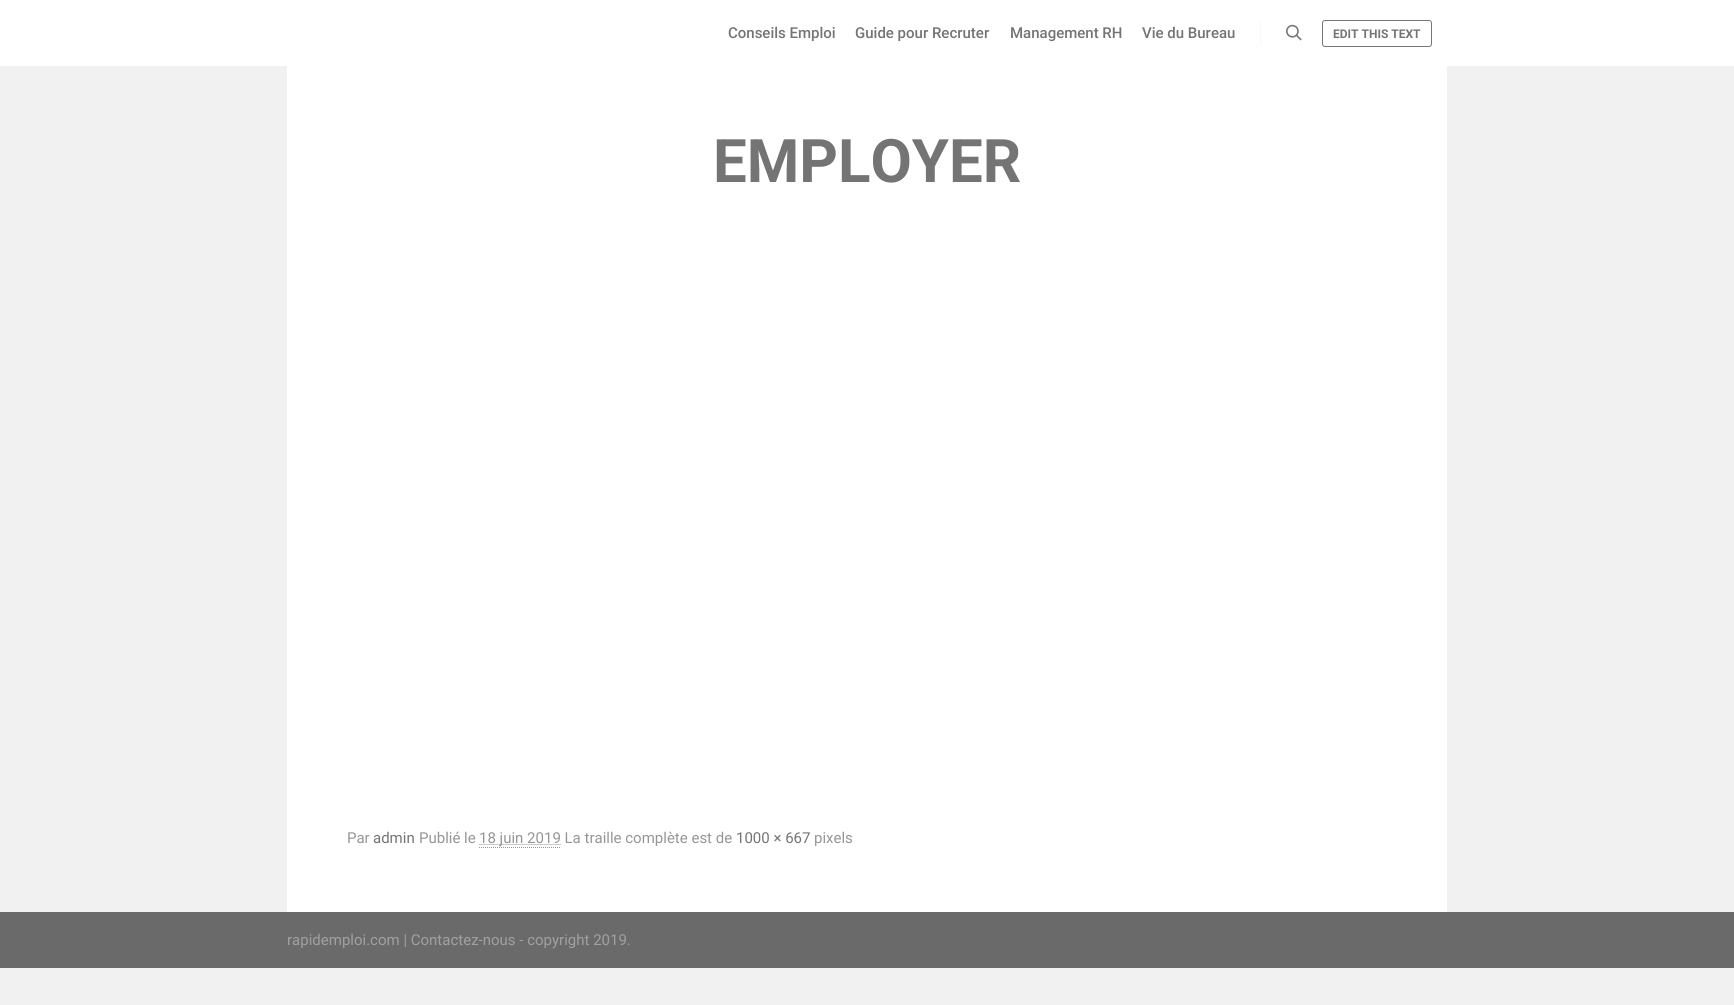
#include <cairo.h>
#include <math.h>
#include <stddef.h>

typedef struct { const char *family; double size; int italic, bold; unsigned color; } style_t;
static cairo_t *ctx;

static void ink(unsigned color) {
    cairo_set_source_rgb(ctx, (color >> 16) / 255.0, (color >> 8 & 255) / 255.0, (color & 255) / 255.0);
}

static void write(double x, double y, const char *s, const style_t *st) {
    cairo_select_font_face(ctx, st->family, st->italic ? CAIRO_FONT_SLANT_ITALIC : CAIRO_FONT_SLANT_NORMAL,
        st->bold ? CAIRO_FONT_WEIGHT_BOLD : CAIRO_FONT_WEIGHT_NORMAL);
    cairo_set_font_size(ctx, st->size);
    ink(st->color);
    cairo_move_to(ctx, x, y);
    cairo_show_text(ctx, s);
}

static void block(double x, double y, double w, double h, unsigned color) {
    ink(color);
    cairo_rectangle(ctx, x, y, w, h);
    cairo_fill(ctx);
}

static void round_path(double x, double y, double w, double h, double r) {
    cairo_new_sub_path(ctx);
    cairo_arc(ctx, x + w - r, y + h - r, r, 0, M_PI / 2);
    cairo_arc(ctx, x + r, y + h - r, r, M_PI / 2, M_PI);
    cairo_arc(ctx, x + r, y + r, r, M_PI, 1.5 * M_PI);
    cairo_arc(ctx, x + w - r, y + r, r, 1.5 * M_PI, 2 * M_PI);
    cairo_close_path(ctx);
}

static void paste(const char *path, double x, double y, double w, double h) {
    cairo_surface_t *image = cairo_image_surface_create_from_png(path);
    cairo_save(ctx);
    cairo_set_source_surface(ctx, image, x, y);
    cairo_rectangle(ctx, x, y, w, h);
    cairo_fill(ctx);
    cairo_restore(ctx);
    cairo_surface_destroy(image);
}

static const style_t s1 = {"Roboto Medium", 15, 0, 0, 0x747474};
static const style_t s2 = {"Roboto", 12, 0, 1, 0x747474};
static const style_t s3 = {"Roboto", 60, 0, 1, 0x747474};
static const style_t s4 = {"Roboto", 15, 0, 0, 0x969696};
static const style_t s5 = {"Roboto", 15, 0, 0, 0x747474};
static const style_t s6 = {"Roboto", 15, 0, 0, 0xa0a0a0};

int main(void) {
    cairo_surface_t *surface = cairo_image_surface_create(CAIRO_FORMAT_RGB24, 1734, 1005);
    ctx = cairo_create(surface);
    cairo_font_options_t *options = cairo_font_options_create();
    cairo_font_options_set_hint_metrics(options, CAIRO_HINT_METRICS_OFF);
    cairo_font_options_set_hint_style(options, CAIRO_HINT_STYLE_NONE);
    cairo_set_font_options(ctx, options);
    cairo_set_miter_limit(ctx, 4);
    ink(0xf1f1f1);
    cairo_paint(ctx);
    block(0, 0, 1734, 66, 0xffffff);
    write(728, 38, "Conseils Emploi", &s1);
    write(855, 38, "Guide pour Recruter", &s1);
    write(1010, 38, "Management RH", &s1);
    write(1142, 38, "Vie du Bureau", &s1);
    block(1260, 21, 1, 25, 0xf8f8f8);
    paste("pic1.png", 1286, 24, 16, 17);
    round_path(1322.5, 20.5, 109, 26, 2.5);
    ink(0x767676);
    cairo_set_line_width(ctx, 1);
    cairo_stroke(ctx);
    write(1333, 38, "EDIT THIS TEXT", &s2);
    block(287, 66, 1160, 846, 0xffffff);
    write(713, 182, "EMPLOYER", &s3);
    write(347, 843, "Par", &s4);
    write(373, 843, "admin", &s5);
    write(419, 843, "Publié le", &s4);
    cairo_new_path(ctx);
    cairo_move_to(ctx, 479.5, 844.5);
    cairo_line_to(ctx, 561, 844.5);
    cairo_set_dash(ctx, (double[]){1, 1}, 2, 0);
    cairo_stroke(ctx);
    write(479, 843, "18 juin 2019 La traille complète est de", &s4);
    cairo_new_path(ctx);
    cairo_move_to(ctx, 479, 847.5);
    cairo_line_to(ctx, 561, 847.5);
    cairo_stroke(ctx);
    write(736, 843, "1000 × 667", &s5);
    write(814, 843, "pixels", &s4);
    block(0, 912, 1734, 56, 0x6a6a6a);
    write(287, 945, "rapidemploi.com | Contactez-nous - copyright 2019.", &s6);
    cairo_surface_write_to_png(surface, "screenshot.png");
    cairo_font_options_destroy(options);
    cairo_destroy(ctx);
    cairo_surface_destroy(surface);
    return 0;
}
